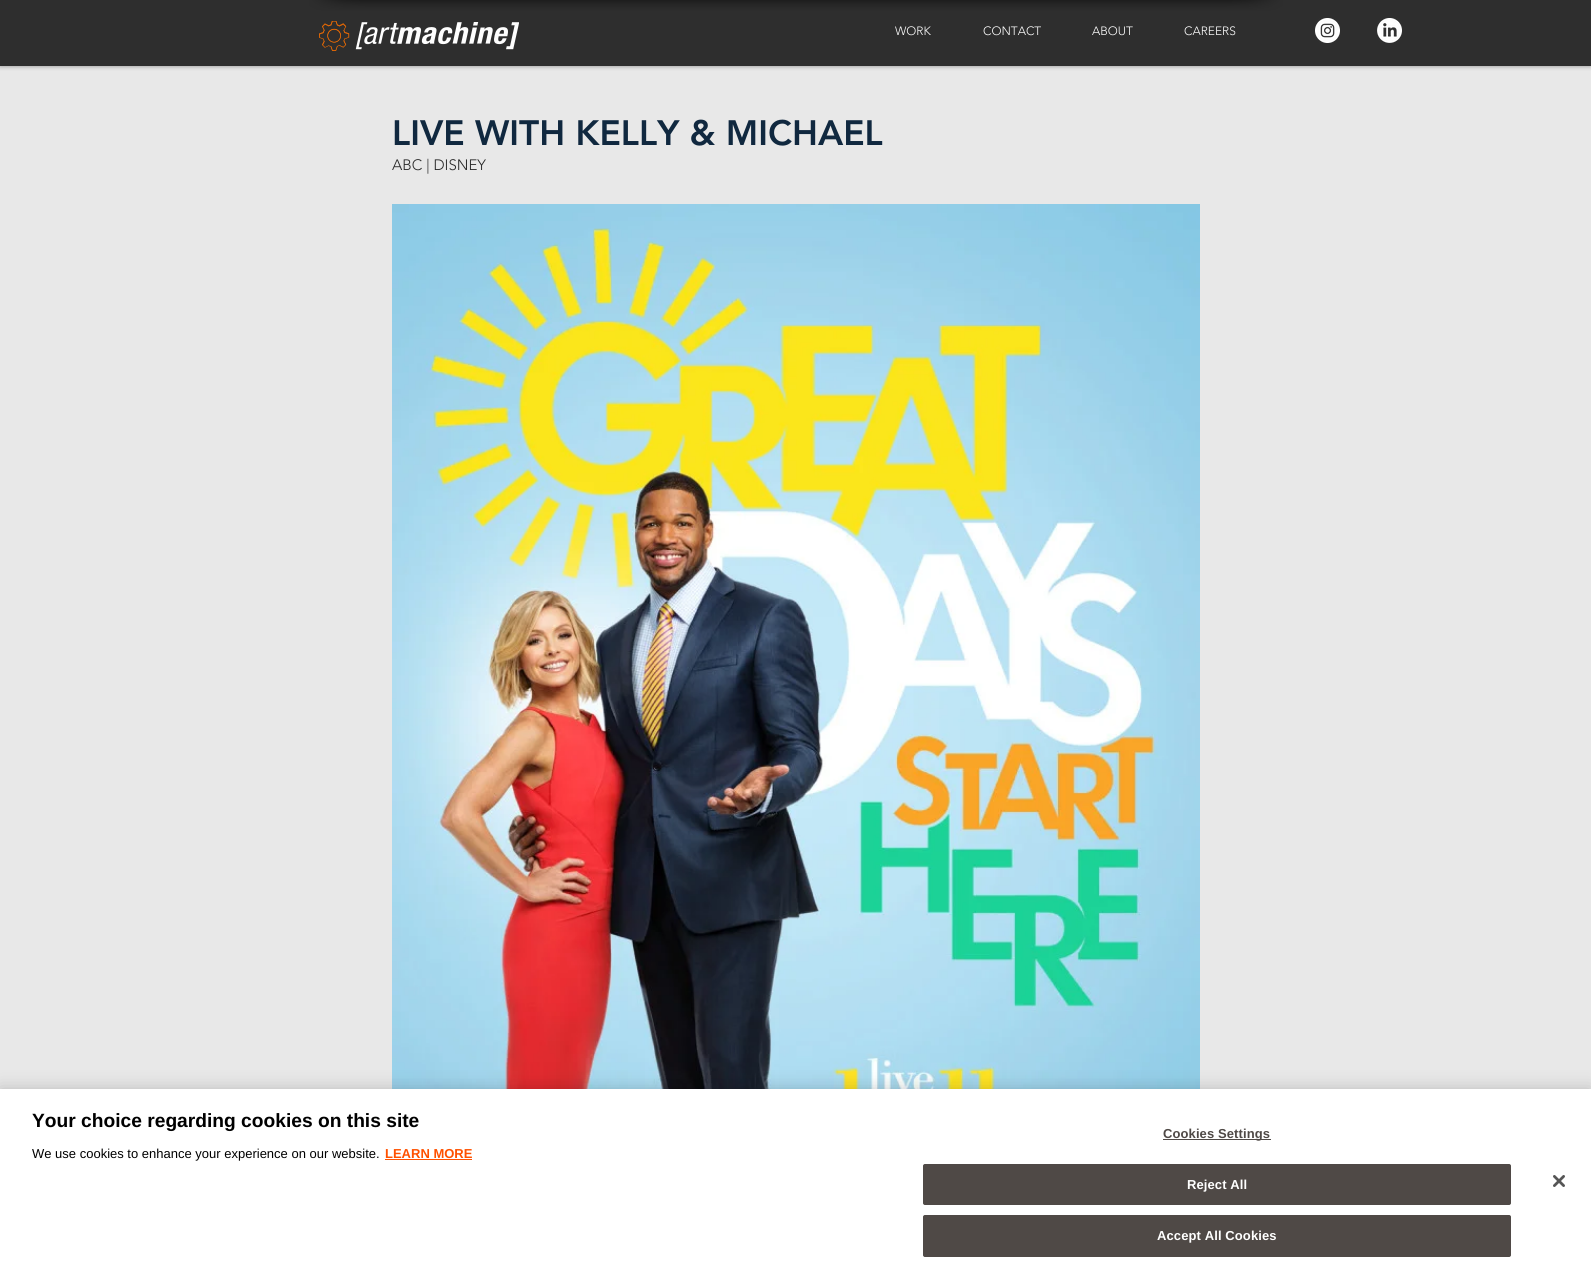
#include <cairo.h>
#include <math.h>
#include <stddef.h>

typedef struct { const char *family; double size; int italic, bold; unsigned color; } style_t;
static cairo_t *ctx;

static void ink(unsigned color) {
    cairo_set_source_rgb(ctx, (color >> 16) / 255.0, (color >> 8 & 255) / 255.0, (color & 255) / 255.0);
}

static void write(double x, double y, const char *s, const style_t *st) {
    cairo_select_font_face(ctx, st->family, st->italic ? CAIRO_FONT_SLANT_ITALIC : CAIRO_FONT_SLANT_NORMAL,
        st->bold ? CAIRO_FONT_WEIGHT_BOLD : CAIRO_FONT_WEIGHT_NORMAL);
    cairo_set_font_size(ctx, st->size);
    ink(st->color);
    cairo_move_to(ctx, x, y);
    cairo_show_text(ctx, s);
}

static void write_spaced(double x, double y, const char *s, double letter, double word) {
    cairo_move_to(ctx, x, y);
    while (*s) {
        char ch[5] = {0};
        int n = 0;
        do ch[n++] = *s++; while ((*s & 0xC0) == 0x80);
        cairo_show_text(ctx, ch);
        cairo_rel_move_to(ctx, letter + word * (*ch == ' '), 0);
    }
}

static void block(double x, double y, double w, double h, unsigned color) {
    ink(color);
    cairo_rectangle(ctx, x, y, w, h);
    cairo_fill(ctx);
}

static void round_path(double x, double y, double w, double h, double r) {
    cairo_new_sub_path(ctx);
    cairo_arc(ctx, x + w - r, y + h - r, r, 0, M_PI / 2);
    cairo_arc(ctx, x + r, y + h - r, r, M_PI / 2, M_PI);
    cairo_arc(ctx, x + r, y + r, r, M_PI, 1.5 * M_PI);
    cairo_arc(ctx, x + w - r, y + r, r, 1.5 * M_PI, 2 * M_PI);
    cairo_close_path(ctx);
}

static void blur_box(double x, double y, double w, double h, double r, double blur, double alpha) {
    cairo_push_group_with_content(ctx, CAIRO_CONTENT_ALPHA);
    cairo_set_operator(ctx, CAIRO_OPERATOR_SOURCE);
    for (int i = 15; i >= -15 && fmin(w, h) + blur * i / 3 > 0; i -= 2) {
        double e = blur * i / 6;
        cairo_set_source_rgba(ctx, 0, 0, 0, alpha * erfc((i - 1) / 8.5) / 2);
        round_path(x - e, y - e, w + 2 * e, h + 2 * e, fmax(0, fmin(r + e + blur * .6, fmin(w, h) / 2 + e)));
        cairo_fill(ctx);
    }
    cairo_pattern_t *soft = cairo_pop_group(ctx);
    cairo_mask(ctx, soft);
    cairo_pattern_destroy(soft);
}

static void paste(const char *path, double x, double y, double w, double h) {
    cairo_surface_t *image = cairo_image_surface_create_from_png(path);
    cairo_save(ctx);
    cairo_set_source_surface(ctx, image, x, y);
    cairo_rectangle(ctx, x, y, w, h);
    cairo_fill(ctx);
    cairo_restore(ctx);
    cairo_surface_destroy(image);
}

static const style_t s1 = {"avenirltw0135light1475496 Light", 12, 0, 0, 0xffffff};
static const style_t s2 = {"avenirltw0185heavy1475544 Black", 35, 0, 0, 0x10283f};
static const style_t s3 = {"avenirltw0135light1475496 Light", 15, 0, 0, 0x292929};
static const style_t s4 = {"Liberation Sans", 19.2, 0, 1, 0x000000};
static const style_t s5 = {"Liberation Sans", 13, 0, 0, 0x000000};
static const style_t s6 = {"Liberation Sans", 13, 0, 1, 0xff5100};

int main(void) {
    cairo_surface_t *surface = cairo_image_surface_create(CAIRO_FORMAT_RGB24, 1591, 1277);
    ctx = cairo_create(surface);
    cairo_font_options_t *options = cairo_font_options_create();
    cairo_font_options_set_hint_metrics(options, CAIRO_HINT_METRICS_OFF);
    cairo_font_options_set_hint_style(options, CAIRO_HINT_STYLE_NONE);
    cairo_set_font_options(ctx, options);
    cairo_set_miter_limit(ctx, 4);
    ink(0xe8e8e8);
    cairo_paint(ctx);
    block(0, 0, 1591, 66, 0x2e2e2e);
    paste("pic1.png", 309, 0, 97, 11);
    paste("pic2.png", 406, 0, 780, 11);
    paste("pic3.png", 1186, 0, 97, 11);
    cairo_save(ctx);
    cairo_rectangle(ctx, 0, 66, 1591, 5);
    cairo_clip(ctx);
    ink(0x666666);
    blur_box(0, 0, 1591, 66, 0, 2.5, 0.7);
    cairo_restore(ctx);
    paste("pic4.png", 319, 21, 200, 30);
    write(895, 35, "WORK", &s1);
    write(983, 35, "CONTACT", &s1);
    write(1092, 35, "ABOUT", &s1);
    write(1184, 35, "CAREERS", &s1);
    paste("pic5.png", 1315, 18, 25, 25);
    paste("pic6.png", 1377, 18, 25, 25);
    write(392, 145, "LIVE WITH KELLY & MICHAEL", &s2);
    write(392, 170, "ABC | DISNEY", &s3);
    paste("pic7.png", 392, 204, 808, 885);
    ink(0x000000);
    blur_box(0, 1089, 1591, 188, 0, 9, 0.2);
    block(0, 1089, 1591, 188, 0xffffff);
    write(32, 1127, "Your choice regarding cookies on this site", &s4);
    write(32, 1158, "We use cookies to enhance your experience on our website.", &s5);
    write(385, 1158, "LEARN MORE", &s6);
    block(385, 1159, 87, 1, 0xff5100);
    block(1163, 1139, 108, 1, 0x4f4946);
    write_spaced(1163, 1138, "Cookies Settings", 0.1, 0);
    round_path(923.5, 1164.5, 587, 40, 1.5);
    cairo_fill_preserve(ctx);
    cairo_set_line_width(ctx, 1);
    cairo_stroke(ctx);
    ink(0xffffff);
    write_spaced(1187, 1189, "Reject All", 0.1, 0);
    ink(0x4f4946);
    round_path(923.5, 1215.5, 587, 41, 1.5);
    cairo_fill_preserve(ctx);
    cairo_stroke(ctx);
    ink(0xffffff);
    write_spaced(1157, 1240, "Accept All Cookies", 0.1, 0);
    paste("pic8.png", 1553, 1175, 12, 12);
    cairo_surface_write_to_png(surface, "screenshot.png");
    cairo_font_options_destroy(options);
    cairo_destroy(ctx);
    cairo_surface_destroy(surface);
    return 0;
}
